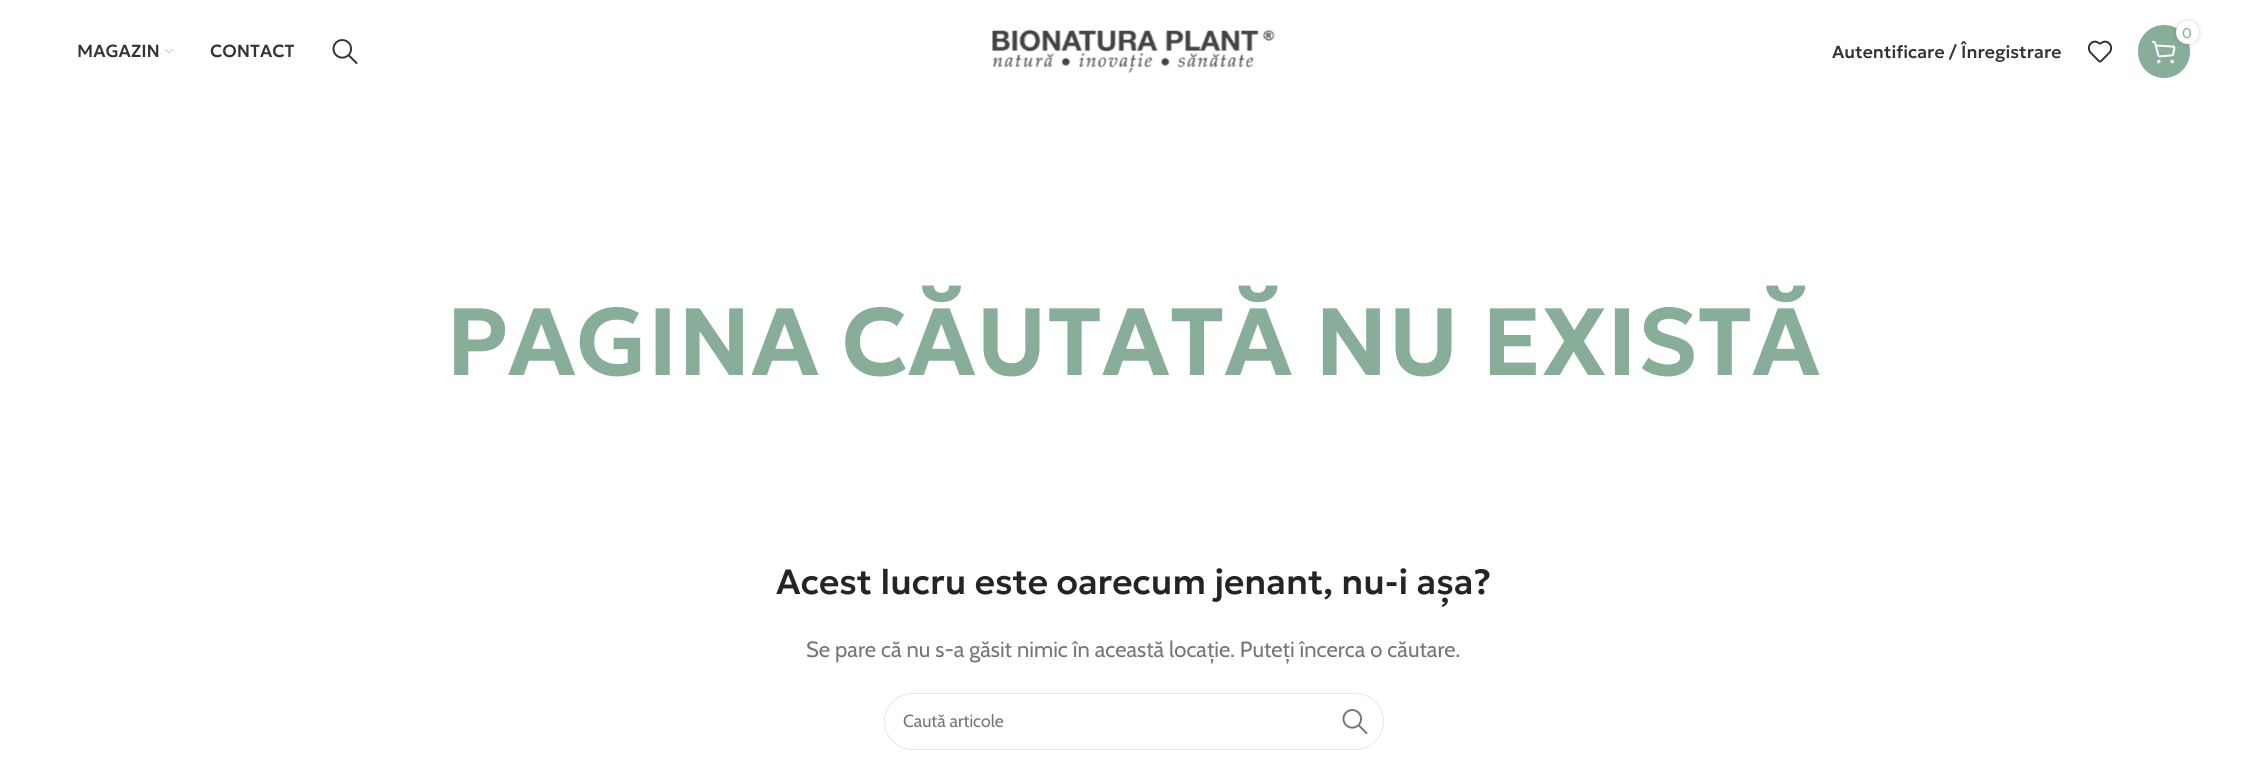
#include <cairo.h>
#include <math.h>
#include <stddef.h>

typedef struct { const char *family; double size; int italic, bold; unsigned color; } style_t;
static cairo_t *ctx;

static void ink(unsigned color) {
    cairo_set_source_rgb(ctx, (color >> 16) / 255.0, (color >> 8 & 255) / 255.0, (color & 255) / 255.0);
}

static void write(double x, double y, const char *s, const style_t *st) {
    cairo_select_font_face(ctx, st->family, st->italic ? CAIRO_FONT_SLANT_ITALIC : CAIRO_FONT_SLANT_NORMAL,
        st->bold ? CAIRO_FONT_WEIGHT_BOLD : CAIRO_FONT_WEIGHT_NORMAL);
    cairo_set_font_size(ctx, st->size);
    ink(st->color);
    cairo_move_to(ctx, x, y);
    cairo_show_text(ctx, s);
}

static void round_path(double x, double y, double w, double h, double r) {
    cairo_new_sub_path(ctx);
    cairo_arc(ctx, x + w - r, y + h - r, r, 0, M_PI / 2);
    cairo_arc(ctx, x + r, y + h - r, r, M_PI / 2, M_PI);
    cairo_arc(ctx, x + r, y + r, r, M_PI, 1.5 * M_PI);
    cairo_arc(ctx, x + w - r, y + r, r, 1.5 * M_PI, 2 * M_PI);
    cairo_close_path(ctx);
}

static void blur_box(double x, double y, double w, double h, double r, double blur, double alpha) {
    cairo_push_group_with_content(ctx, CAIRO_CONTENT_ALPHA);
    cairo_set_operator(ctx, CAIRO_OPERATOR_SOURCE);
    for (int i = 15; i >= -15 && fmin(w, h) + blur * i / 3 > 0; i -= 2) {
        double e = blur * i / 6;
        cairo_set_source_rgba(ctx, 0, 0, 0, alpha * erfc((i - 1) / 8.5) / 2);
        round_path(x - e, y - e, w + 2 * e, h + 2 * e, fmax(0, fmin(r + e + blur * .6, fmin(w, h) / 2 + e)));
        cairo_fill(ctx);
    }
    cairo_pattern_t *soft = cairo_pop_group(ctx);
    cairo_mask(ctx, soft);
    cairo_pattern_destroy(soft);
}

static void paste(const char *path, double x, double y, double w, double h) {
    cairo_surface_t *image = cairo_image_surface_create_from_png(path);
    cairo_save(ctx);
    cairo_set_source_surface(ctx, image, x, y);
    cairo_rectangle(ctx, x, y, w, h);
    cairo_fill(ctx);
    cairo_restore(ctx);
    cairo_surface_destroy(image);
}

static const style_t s1 = {"Geologica Medium", 17.5, 0, 0, 0x333333};
static const style_t s2 = {"Cabin", 14, 0, 0, 0x88ad99};
static const style_t s3 = {"Geologica SemiBold", 95.2, 0, 0, 0x88ad99};
static const style_t s4 = {"Geologica Medium", 35, 0, 0, 0x242424};
static const style_t s5 = {"Cabin", 22, 0, 0, 0x767676};
static const style_t s6 = {"Cabin", 17.5, 0, 0, 0x767676};

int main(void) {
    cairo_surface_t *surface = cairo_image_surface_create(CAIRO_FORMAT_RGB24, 2266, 781);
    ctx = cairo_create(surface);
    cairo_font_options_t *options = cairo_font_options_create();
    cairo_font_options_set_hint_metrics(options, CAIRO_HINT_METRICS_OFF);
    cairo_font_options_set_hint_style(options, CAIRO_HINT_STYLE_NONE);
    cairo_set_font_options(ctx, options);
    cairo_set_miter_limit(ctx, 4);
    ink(0xffffff);
    cairo_paint(ctx);
    write(77, 57, "MAGAZIN", &s1);
    paste("pic1.png", 165, 49, 8, 5);
    write(210, 57, "CONTACT", &s1);
    paste("pic2.png", 332, 39, 26, 25);
    paste("pic3.png", 992, 29, 283, 44);
    ink(0x88ad99);
    round_path(2138, 25, 52, 53, 26);
    cairo_fill(ctx);
    paste("pic4.png", 2151, 40, 25, 24);
    ink(0x000000);
    blur_box(2176, 21, 23, 23, 11.5, 2.5, 0.17);
    ink(0xffffff);
    cairo_arc(ctx, 2187.5, 32.5, 11.5, 0, 2 * M_PI);
    cairo_fill(ctx);
    write(2182, 38, "0", &s2);
    write(1832, 58, "Autentificare / Înregistrare", &s1);
    paste("pic5.png", 2087, 40, 26, 23);
    write(446, 375, "PAGINA CĂUTATĂ NU EXISTĂ", &s3);
    write(776, 594, "Acest lucru este oarecum jenant, nu-i așa?", &s4);
    write(806, 657, "Se pare că nu s-a găsit nimic în această locație. Puteți încerca o căutare.", &s5);
    round_path(884.5, 693.5, 499, 56, 28);
    ink(0xe6e6e6);
    cairo_set_line_width(ctx, 1);
    cairo_stroke(ctx);
    write(903, 727, "Caută articole", &s6);
    paste("pic6.png", 1342, 709, 26, 25);
    cairo_surface_write_to_png(surface, "screenshot.png");
    cairo_font_options_destroy(options);
    cairo_destroy(ctx);
    cairo_surface_destroy(surface);
    return 0;
}
